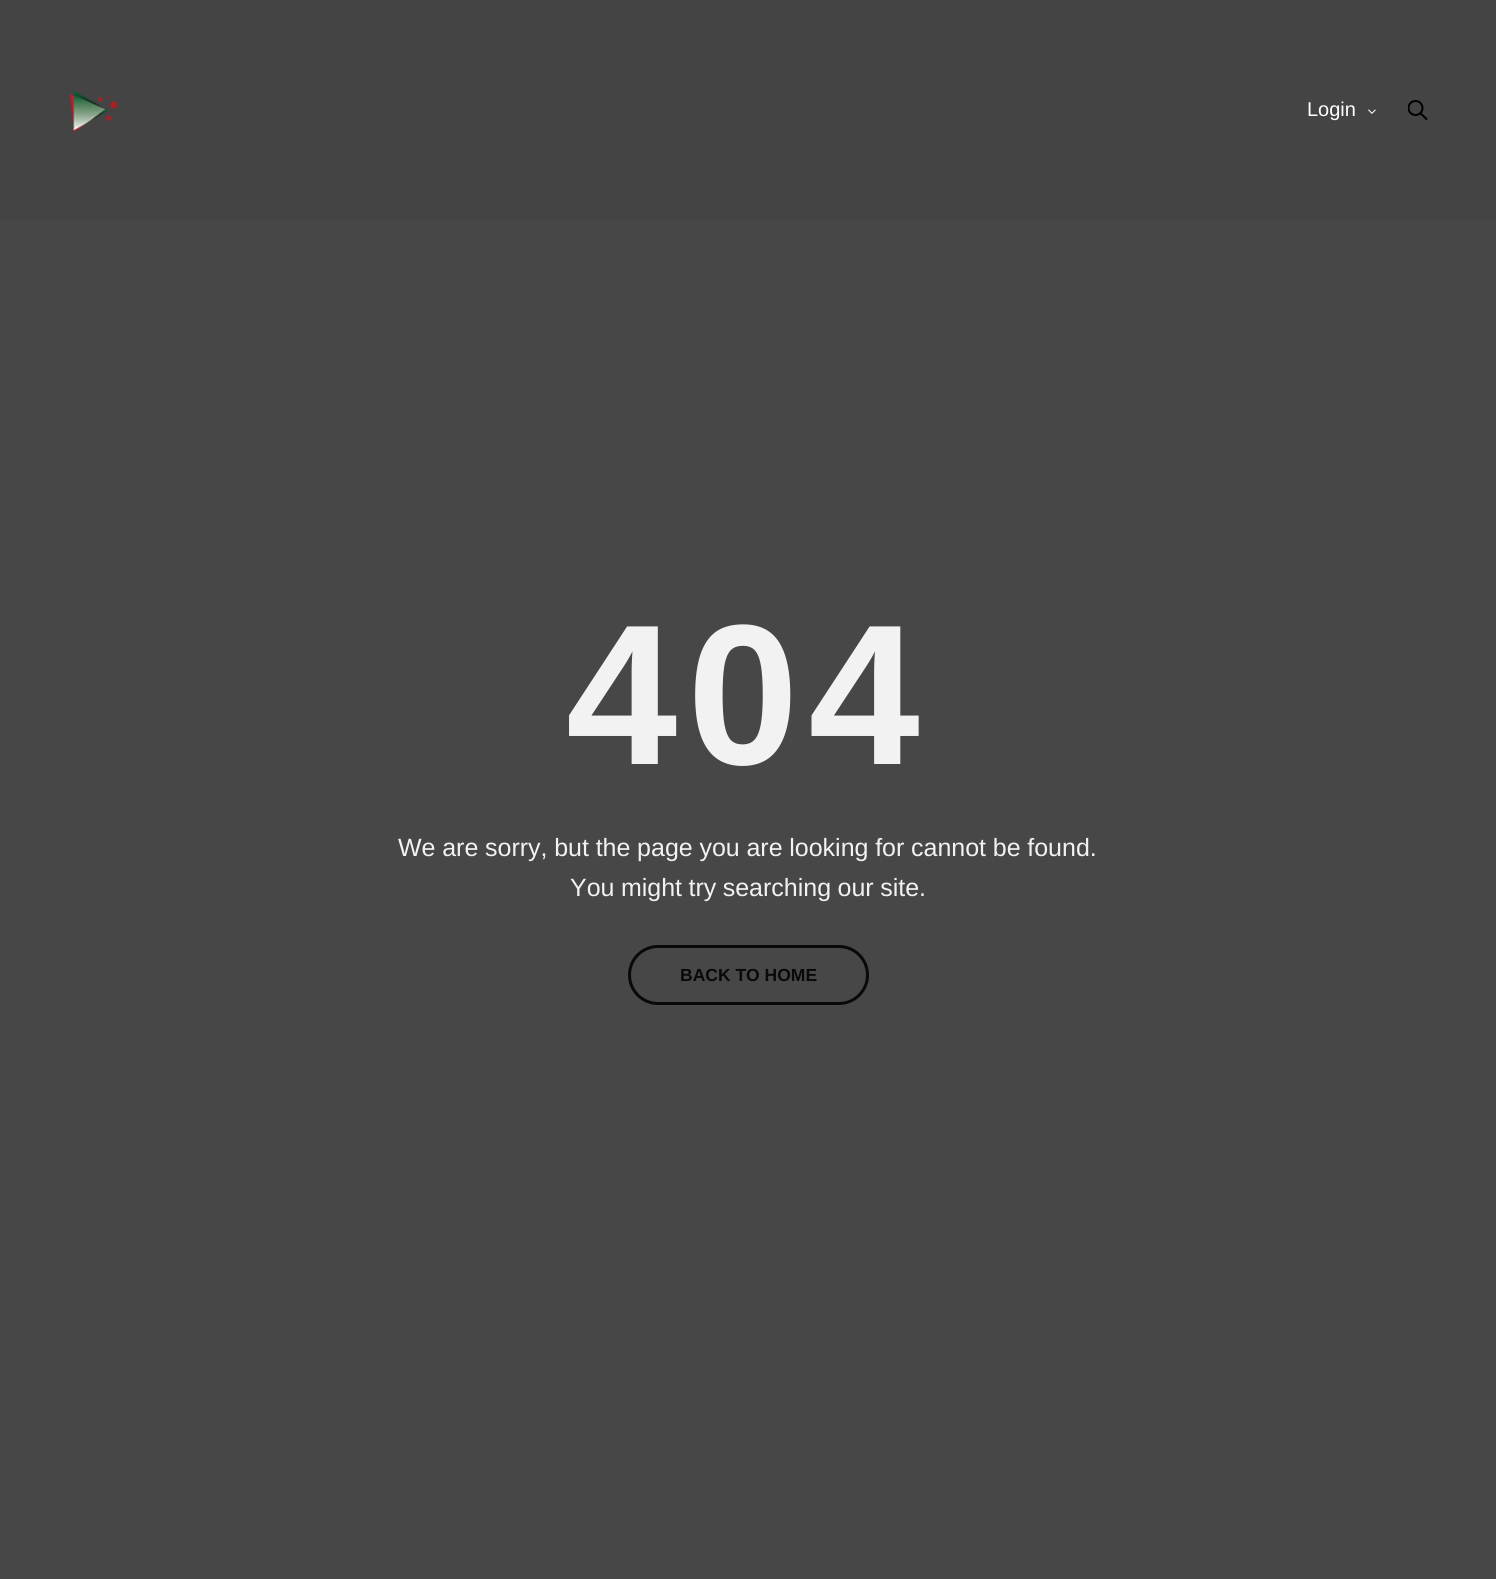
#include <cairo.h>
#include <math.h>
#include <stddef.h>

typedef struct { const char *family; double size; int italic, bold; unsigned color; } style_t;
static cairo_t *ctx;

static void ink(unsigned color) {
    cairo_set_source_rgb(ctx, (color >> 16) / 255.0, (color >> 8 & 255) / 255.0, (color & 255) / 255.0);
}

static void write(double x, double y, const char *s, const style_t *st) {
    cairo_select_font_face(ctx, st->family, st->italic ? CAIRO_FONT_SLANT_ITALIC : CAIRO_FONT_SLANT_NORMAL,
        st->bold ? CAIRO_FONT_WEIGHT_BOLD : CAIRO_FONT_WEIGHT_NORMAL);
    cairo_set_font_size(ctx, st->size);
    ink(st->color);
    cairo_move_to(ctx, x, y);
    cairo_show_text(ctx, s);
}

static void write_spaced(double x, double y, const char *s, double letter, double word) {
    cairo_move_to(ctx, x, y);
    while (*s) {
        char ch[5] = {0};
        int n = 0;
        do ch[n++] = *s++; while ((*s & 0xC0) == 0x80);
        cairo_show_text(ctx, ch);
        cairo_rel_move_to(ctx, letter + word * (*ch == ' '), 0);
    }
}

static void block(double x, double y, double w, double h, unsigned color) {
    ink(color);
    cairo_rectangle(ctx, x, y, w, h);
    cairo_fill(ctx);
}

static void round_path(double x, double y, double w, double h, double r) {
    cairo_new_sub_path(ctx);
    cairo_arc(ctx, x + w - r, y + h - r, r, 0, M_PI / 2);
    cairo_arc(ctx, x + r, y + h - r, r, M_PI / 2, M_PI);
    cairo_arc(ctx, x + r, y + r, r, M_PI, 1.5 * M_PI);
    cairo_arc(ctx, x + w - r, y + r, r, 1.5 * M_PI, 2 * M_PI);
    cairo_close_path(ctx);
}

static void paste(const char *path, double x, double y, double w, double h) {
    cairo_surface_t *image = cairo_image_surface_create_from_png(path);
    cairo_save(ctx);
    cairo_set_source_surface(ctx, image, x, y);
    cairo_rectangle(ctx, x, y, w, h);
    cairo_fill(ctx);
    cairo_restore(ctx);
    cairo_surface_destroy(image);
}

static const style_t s1 = {"Liberation Sans", 20, 0, 0, 0xffffff};
static const style_t s2 = {"Liberation Sans", 17.5, 0, 1, 0x090909};

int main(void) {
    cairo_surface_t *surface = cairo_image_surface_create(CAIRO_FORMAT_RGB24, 1496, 1579);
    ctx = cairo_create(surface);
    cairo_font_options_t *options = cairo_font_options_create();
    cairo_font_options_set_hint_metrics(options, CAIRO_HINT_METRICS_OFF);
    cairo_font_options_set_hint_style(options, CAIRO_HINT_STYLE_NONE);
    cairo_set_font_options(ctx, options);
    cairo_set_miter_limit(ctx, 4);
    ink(0x474747);
    cairo_paint(ctx);
    block(0, 0, 1496, 220, 0x444444);
    paste("pic1.png", 69, 90, 49, 43);
    write(1307, 116, "Login", &s1);
    paste("pic2.png", 1368, 109, 8, 5);
    paste("pic3.png", 1408, 100, 20, 20);
    cairo_select_font_face(ctx, "Liberation Sans", CAIRO_FONT_SLANT_NORMAL, CAIRO_FONT_WEIGHT_BOLD);
    cairo_set_font_size(ctx, 200);
    ink(0xf2f2f2);
    write_spaced(566, 764, "404", 10, 0);
    cairo_select_font_face(ctx, "Liberation Sans", CAIRO_FONT_SLANT_NORMAL, CAIRO_FONT_WEIGHT_NORMAL);
    cairo_set_font_size(ctx, 25);
    write_spaced(398, 856, "We are sorry, but the page you are looking for cannot be found.", 0, -0.25);
    write_spaced(570, 896, "You might try searching our site.", 0, -0.5);
    round_path(629.5, 946.5, 238, 57, 28.5);
    ink(0x090909);
    cairo_set_line_width(ctx, 3);
    cairo_stroke(ctx);
    write(680, 981, "BACK TO HOME", &s2);
    cairo_surface_write_to_png(surface, "screenshot.png");
    cairo_font_options_destroy(options);
    cairo_destroy(ctx);
    cairo_surface_destroy(surface);
    return 0;
}
